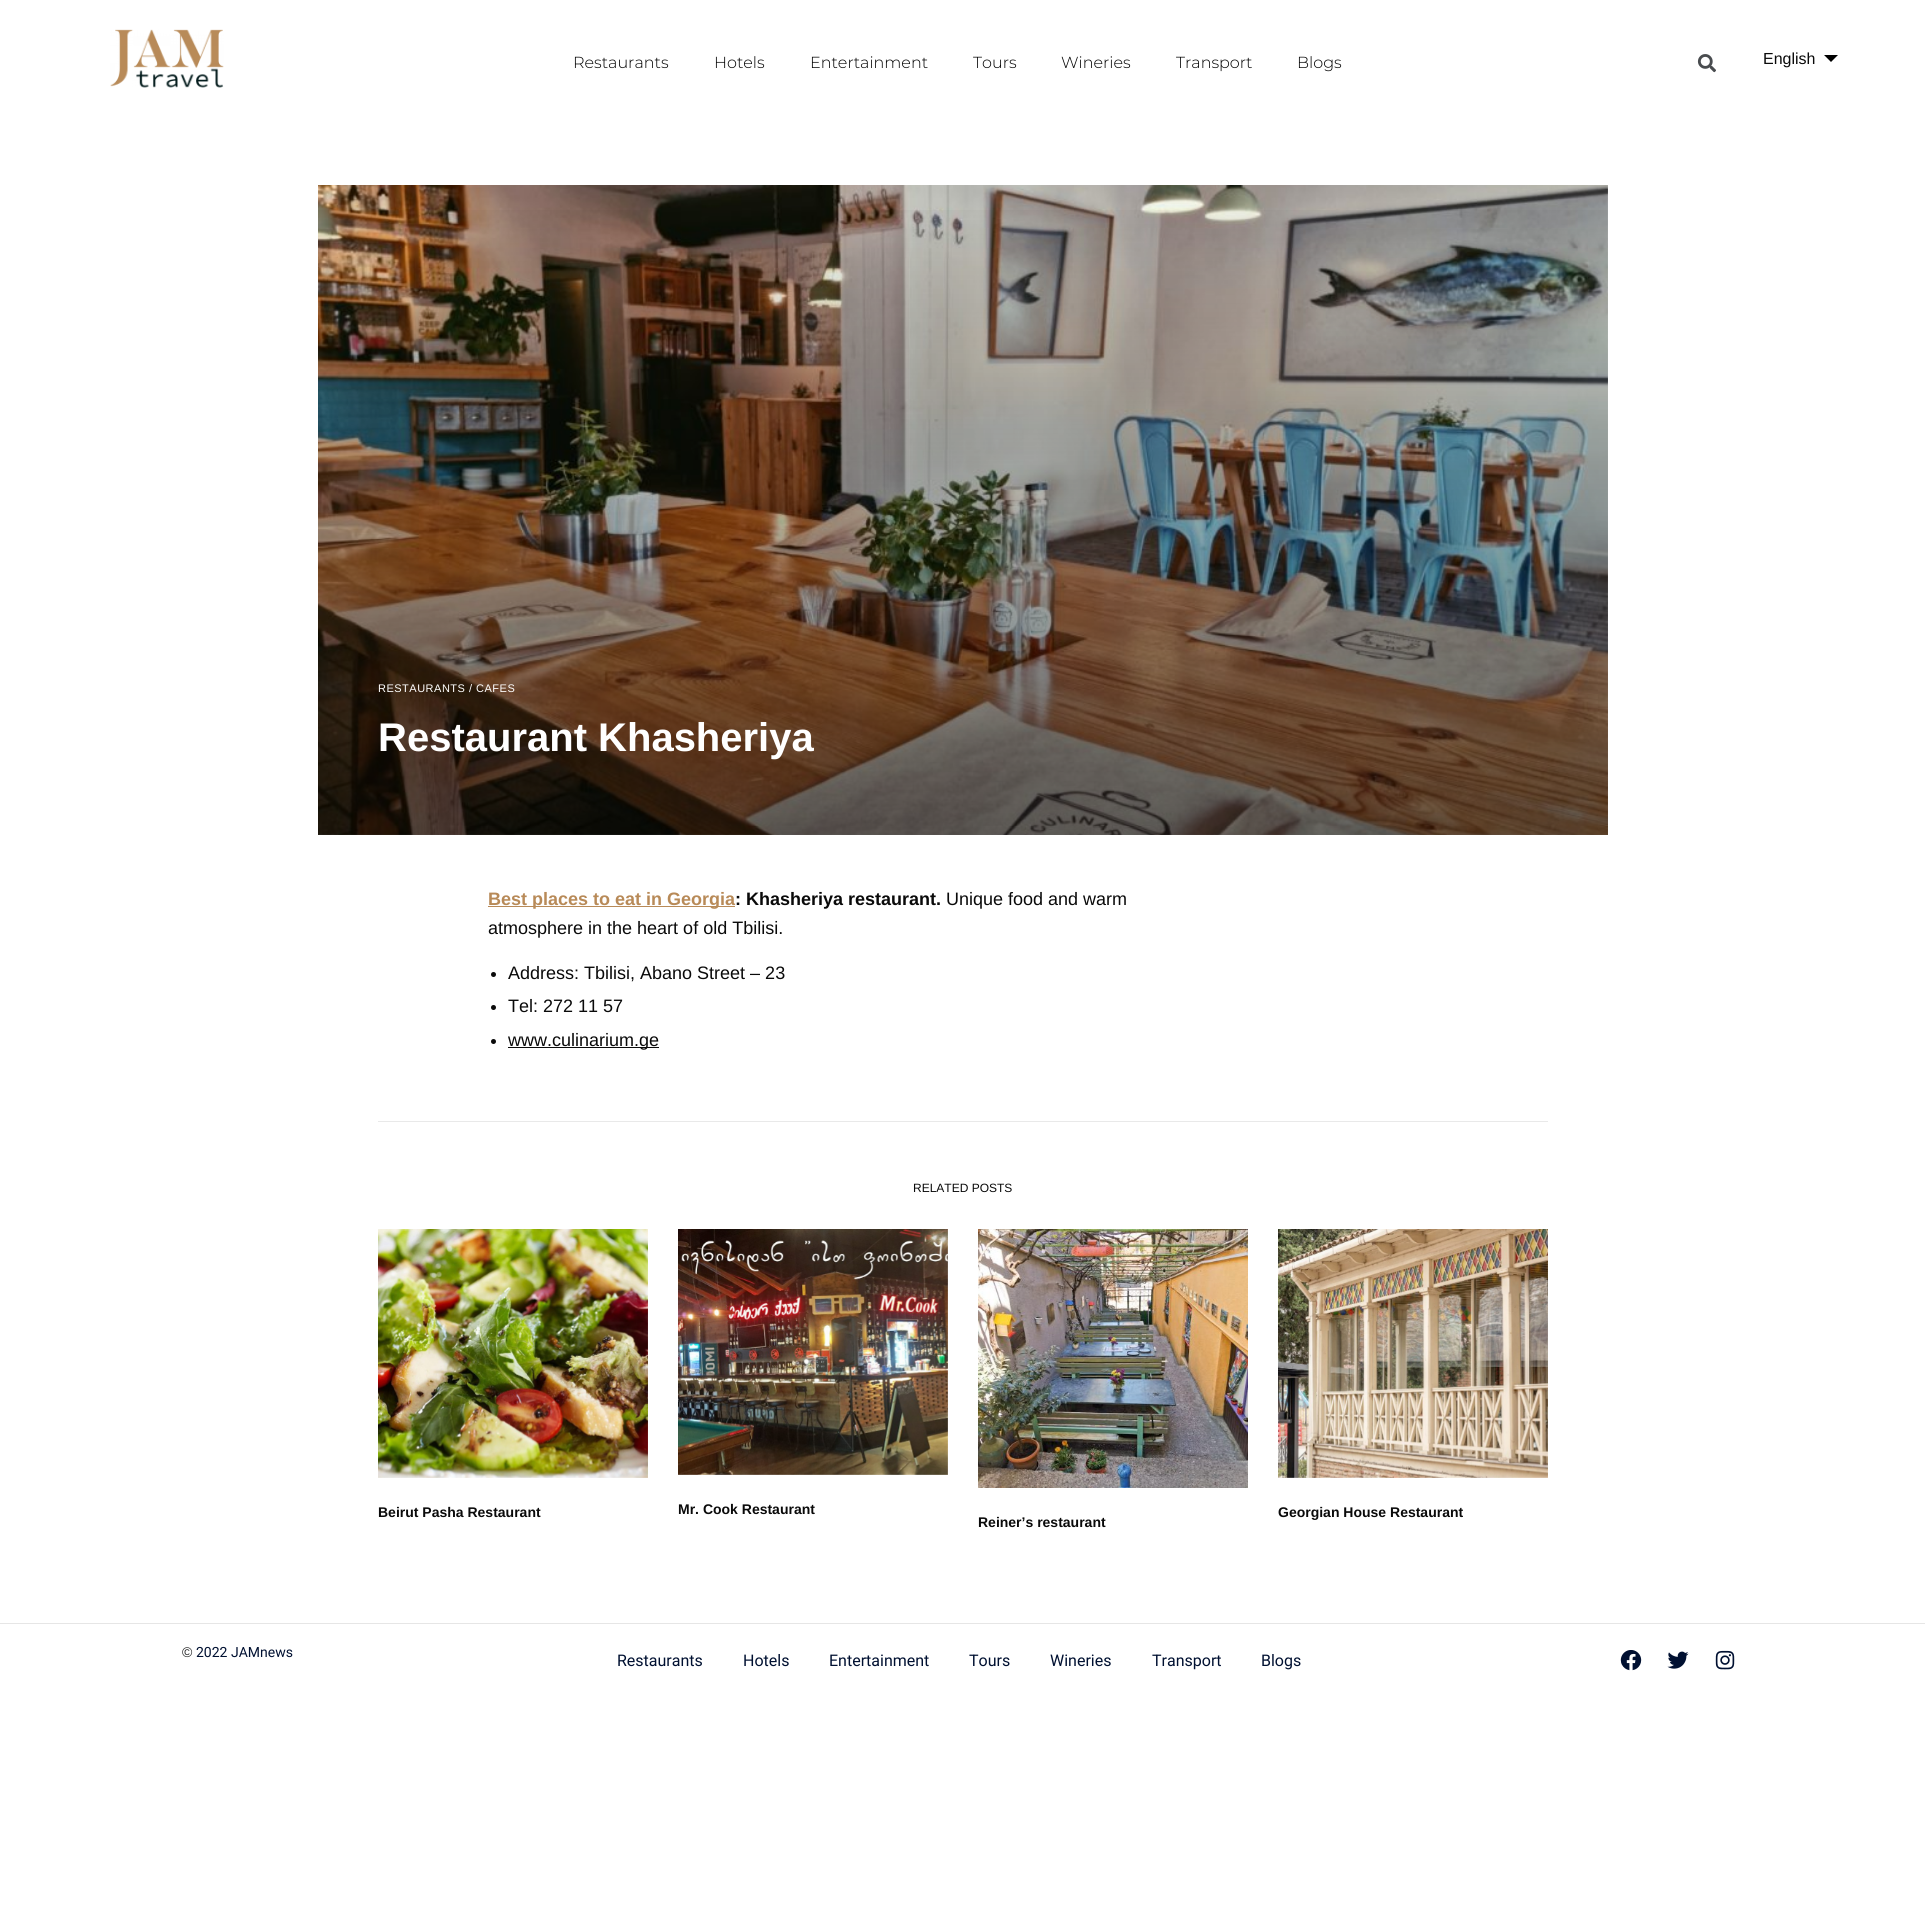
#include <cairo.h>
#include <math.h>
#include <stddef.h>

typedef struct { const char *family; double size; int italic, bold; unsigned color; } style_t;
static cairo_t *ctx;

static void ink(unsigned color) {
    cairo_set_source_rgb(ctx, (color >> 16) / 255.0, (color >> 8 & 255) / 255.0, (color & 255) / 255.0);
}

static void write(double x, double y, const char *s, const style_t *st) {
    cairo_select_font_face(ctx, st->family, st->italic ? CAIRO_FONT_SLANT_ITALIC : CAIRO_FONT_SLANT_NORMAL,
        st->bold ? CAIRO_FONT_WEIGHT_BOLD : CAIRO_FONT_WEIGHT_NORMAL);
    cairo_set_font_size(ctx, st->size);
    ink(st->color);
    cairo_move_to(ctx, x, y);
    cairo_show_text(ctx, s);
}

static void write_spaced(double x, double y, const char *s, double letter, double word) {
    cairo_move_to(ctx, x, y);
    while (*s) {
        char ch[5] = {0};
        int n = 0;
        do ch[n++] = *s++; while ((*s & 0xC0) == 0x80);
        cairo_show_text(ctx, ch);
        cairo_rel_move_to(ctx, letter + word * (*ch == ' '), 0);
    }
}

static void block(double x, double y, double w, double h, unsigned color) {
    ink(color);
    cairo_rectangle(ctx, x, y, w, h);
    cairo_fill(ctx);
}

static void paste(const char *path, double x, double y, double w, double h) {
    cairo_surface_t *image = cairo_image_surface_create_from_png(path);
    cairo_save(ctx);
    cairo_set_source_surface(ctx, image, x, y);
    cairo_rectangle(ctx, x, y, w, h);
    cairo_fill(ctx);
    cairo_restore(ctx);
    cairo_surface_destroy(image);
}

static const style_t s1 = {"Montserrat Light", 16, 0, 0, 0x000000};
static const style_t s2 = {"Liberation Sans", 16, 0, 0, 0x0a0a0a};
static const style_t s3 = {"Liberation Sans", 40, 0, 1, 0xffffff};
static const style_t s4 = {"Liberation Sans", 18, 0, 1, 0xb88a58};
static const style_t s5 = {"Liberation Sans", 18, 0, 1, 0x0a0a0a};
static const style_t s6 = {"Liberation Sans", 18, 0, 0, 0x0a0a0a};
static const style_t s7 = {"Liberation Sans", 12, 0, 0, 0x0a0a0a};
static const style_t s8 = {"Liberation Sans", 14, 0, 1, 0x0a0a0a};
static const style_t s9 = {"Liberation Sans", 14, 0, 0, 0x202122};
static const style_t s10 = {"Roboto", 14, 0, 0, 0x001031};
static const style_t s11 = {"Roboto", 16, 0, 0, 0x001031};

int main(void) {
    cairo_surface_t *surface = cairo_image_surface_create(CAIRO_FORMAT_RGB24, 1925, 1911);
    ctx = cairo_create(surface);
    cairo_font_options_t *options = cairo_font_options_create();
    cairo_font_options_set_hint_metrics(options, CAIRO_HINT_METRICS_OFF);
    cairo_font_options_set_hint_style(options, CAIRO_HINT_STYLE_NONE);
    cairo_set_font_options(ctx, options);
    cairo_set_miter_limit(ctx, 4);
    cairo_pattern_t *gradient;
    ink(0xffffff);
    cairo_paint(ctx);
    paste("pic1.png", 110, 29, 114, 59);
    write(573, 68, "Restaurants", &s1);
    write(714, 68, "Hotels", &s1);
    write(810, 68, "Entertainment", &s1);
    write(973, 68, "Tours", &s1);
    write(1061, 68, "Wineries", &s1);
    write(1176, 68, "Transport", &s1);
    write(1297, 68, "Blogs", &s1);
    paste("pic2.png", 1697, 54, 19, 19);
    write(1763, 64, "English", &s2);
    ink(0x000000);
    cairo_new_path(ctx);
    cairo_move_to(ctx, 1824, 55);
    cairo_line_to(ctx, 1838, 55);
    cairo_line_to(ctx, 1831, 62);
    cairo_close_path(ctx);
    cairo_fill(ctx);
    paste("pic3.png", 318, 185, 1290, 650);
    gradient = cairo_pattern_create_linear(963, 185, 963, 835);
    cairo_pattern_add_color_stop_rgba(gradient, 0, 0, 0, 0, 0);
    cairo_pattern_add_color_stop_rgba(gradient, 1, 0, 0, 0, 0.55);
    cairo_set_source(ctx, gradient);
    cairo_pattern_destroy(gradient);
    cairo_rectangle(ctx, 318, 210, 1290, 625);
    cairo_fill(ctx);
    cairo_set_font_size(ctx, 11);
    ink(0xffffff);
    write_spaced(378, 692, "RESTAURANTS / CAFES", 0.5, 0);
    write(378, 751, "Restaurant Khasheriya", &s3);
    block(488, 906, 247, 1, 0xb88a58);
    write(488, 905, "Best places to eat in Georgia", &s4);
    write(735, 905, ": Khasheriya restaurant.", &s5);
    write(946, 905, "Unique food and warm", &s6);
    write(488, 934, "atmosphere in the heart of old Tbilisi.", &s6);
    cairo_new_path(ctx);
    cairo_arc(ctx, 493.5, 974.5, 2.5, 0, 2 * M_PI);
    cairo_fill(ctx);
    write(508, 979, "Address: Tbilisi, Abano Street – 23", &s6);
    cairo_new_path(ctx);
    cairo_arc(ctx, 493.5, 1007.5, 2.5, 0, 2 * M_PI);
    cairo_fill(ctx);
    write(508, 1012, "Tel: 272 11 57", &s6);
    cairo_new_path(ctx);
    cairo_arc(ctx, 493.5, 1041.5, 2.5, 0, 2 * M_PI);
    cairo_fill(ctx);
    block(508, 1047, 151, 1, 0x0a0a0a);
    write(508, 1046, "www.culinarium.ge", &s6);
    block(378, 1121, 1170, 1, 0xe9e9e9);
    write(913, 1192, "RELATED POSTS", &s7);
    paste("pic4.png", 378, 1229, 270, 249);
    write(378, 1517, "Beirut Pasha Restaurant", &s8);
    paste("pic5.png", 678, 1229, 270, 246);
    write(678, 1514, "Mr. Cook Restaurant", &s8);
    paste("pic6.png", 1278, 1229, 270, 249);
    write(1278, 1517, "Georgian House Restaurant", &s8);
    paste("pic7.png", 978, 1229, 270, 259);
    write(978, 1527, "Reiner’s restaurant", &s8);
    block(0, 1623, 1925, 1, 0xe6e6e6);
    write(182, 1657, "©", &s9);
    write(196, 1657, "2022 JAMnews", &s10);
    write(617, 1666, "Restaurants", &s11);
    write(743, 1666, "Hotels", &s11);
    write(829, 1666, "Entertainment", &s11);
    write(969, 1666, "Tours", &s11);
    write(1050, 1666, "Wineries", &s11);
    write(1152, 1666, "Transport", &s11);
    write(1261, 1666, "Blogs", &s11);
    paste("pic8.png", 1620, 1650, 22, 21);
    paste("pic9.png", 1667, 1651, 22, 18);
    paste("pic10.png", 1715, 1650, 20, 20);
    cairo_surface_write_to_png(surface, "screenshot.png");
    cairo_font_options_destroy(options);
    cairo_destroy(ctx);
    cairo_surface_destroy(surface);
    return 0;
}
